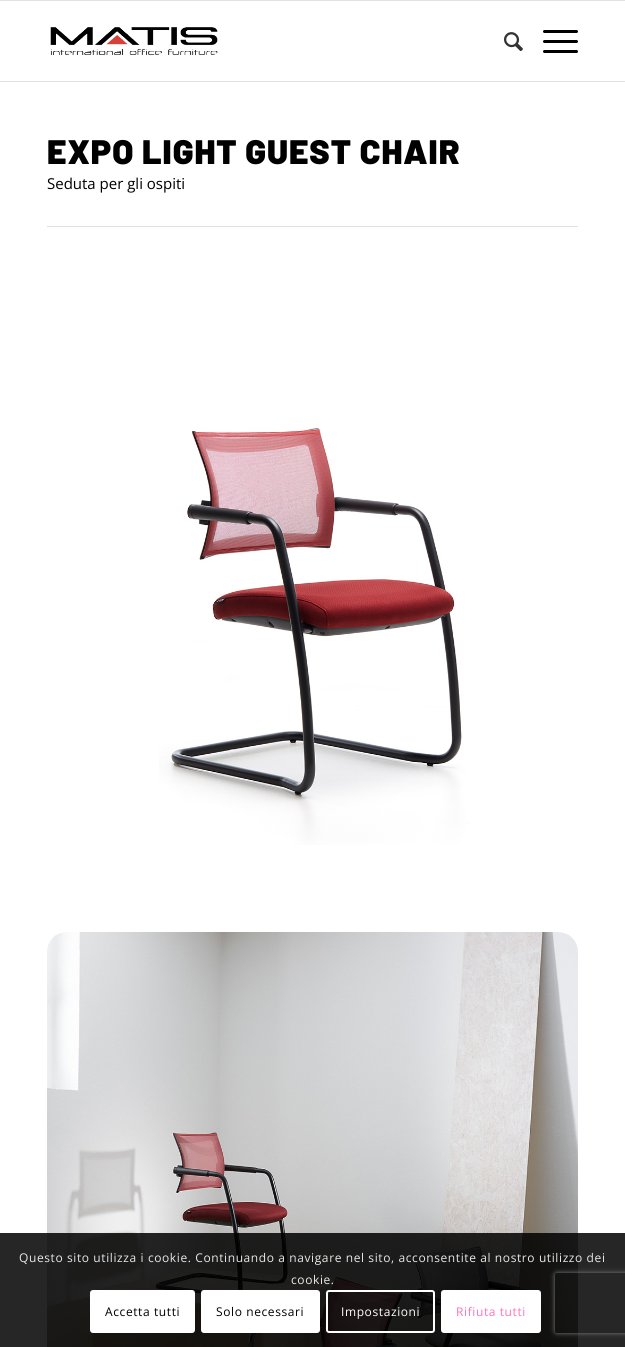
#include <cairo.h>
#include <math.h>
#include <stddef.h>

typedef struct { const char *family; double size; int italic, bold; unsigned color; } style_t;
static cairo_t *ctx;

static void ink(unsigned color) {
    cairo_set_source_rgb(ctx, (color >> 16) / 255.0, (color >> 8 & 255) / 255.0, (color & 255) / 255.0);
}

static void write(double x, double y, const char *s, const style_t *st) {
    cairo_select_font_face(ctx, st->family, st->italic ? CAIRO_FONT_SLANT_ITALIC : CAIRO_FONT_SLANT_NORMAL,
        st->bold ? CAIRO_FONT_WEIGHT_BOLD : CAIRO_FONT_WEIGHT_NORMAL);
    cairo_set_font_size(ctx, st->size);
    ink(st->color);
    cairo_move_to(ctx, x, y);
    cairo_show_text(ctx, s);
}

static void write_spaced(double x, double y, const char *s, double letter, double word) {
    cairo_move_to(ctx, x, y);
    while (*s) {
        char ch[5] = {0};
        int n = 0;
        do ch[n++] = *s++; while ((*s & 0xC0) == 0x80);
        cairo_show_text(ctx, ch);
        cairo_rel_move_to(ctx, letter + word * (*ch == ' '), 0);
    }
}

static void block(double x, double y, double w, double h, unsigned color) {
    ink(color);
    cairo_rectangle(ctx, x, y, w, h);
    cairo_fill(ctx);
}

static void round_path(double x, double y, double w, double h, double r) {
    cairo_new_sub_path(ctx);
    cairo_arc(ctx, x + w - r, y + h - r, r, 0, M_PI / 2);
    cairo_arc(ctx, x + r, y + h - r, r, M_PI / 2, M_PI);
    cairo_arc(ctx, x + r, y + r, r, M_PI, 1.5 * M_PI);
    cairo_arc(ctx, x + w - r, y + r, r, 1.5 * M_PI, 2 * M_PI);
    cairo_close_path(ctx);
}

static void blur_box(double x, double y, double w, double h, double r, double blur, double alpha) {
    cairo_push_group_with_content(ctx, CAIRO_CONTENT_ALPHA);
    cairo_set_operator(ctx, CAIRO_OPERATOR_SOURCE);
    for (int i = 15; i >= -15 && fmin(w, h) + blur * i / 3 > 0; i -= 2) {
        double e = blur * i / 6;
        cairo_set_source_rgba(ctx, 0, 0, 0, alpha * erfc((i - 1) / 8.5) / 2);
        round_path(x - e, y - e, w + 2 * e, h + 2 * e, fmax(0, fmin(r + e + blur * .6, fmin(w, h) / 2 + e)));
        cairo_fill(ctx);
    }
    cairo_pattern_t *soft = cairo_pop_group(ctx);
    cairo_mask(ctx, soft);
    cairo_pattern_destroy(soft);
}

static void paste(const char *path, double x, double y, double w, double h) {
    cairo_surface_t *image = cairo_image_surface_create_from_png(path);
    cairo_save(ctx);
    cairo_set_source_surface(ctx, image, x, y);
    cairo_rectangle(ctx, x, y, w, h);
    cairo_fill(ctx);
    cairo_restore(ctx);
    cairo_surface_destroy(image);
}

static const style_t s1 = {"Open Sans", 15, 0, 0, 0x000000};

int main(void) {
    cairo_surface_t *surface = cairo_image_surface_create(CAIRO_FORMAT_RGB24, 625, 1347);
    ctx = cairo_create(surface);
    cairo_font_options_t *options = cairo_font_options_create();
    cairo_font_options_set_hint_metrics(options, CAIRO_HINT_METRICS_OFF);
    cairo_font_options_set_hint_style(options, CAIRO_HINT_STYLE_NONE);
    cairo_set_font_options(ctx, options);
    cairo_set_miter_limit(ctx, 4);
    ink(0xffffff);
    cairo_paint(ctx);
    block(0, 0, 625, 1, 0xe1e1e1);
    block(0, 81, 625, 1, 0xe1e1e1);
    paste("pic1.png", 50, 27, 168, 28);
    paste("pic2.png", 504, 32, 19, 20);
    ink(0x000000);
    round_path(543, 40, 35, 3, 1.5);
    cairo_fill(ctx);
    round_path(543, 30, 35, 3, 1.5);
    cairo_fill(ctx);
    round_path(543, 50, 35, 3, 1.5);
    cairo_fill(ctx);
    cairo_select_font_face(ctx, "Barlow Black", CAIRO_FONT_SLANT_NORMAL, CAIRO_FONT_WEIGHT_NORMAL);
    cairo_set_font_size(ctx, 34);
    write_spaced(47, 164, "EXPO LIGHT GUEST CHAIR", 1, 0);
    write(47, 189, "Seduta per gli ospiti", &s1);
    block(47, 226, 531, 1, 0xe1e1e1);
    paste("pic3.png", 159, 427, 311, 418);
    paste("pic4.png", 47, 932, 531, 415);
    cairo_set_source_rgba(ctx, 0, 0, 0, 0.85);
    cairo_rectangle(ctx, 0, 1233, 625, 114);
    cairo_fill(ctx);
    cairo_set_font_size(ctx, 12);
    ink(0xe8e8e8);
    write_spaced(19, 1262, "Questo sito utilizza i cookie. Continuando a navigare nel sito, acconsentite al nostro utilizzo dei", 0.6, 0);
    write_spaced(291, 1284, "cookie.", 0.6, 0);
    ink(0xffffff);
    round_path(90, 1290, 105, 43, 3);
    cairo_fill(ctx);
    ink(0x000000);
    write_spaced(105, 1316, "Accetta tutti", 0.6, 0);
    ink(0xffffff);
    round_path(201, 1290, 119, 43, 3);
    cairo_fill(ctx);
    ink(0x000000);
    write_spaced(216, 1316, "Solo necessari", 0.6, 0);
    round_path(327, 1291, 107, 41, 2);
    ink(0xffffff);
    cairo_stroke(ctx);
    write_spaced(341, 1316, "Impostazioni", 0.6, 0);
    round_path(442, 1291, 98, 41, 2);
    cairo_fill_preserve(ctx);
    cairo_stroke(ctx);
    ink(0xff75b5);
    write_spaced(456, 1316, "Rifiuta tutti", 0.6, 0);
    cairo_save(ctx);
    cairo_set_fill_rule(ctx, CAIRO_FILL_RULE_EVEN_ODD);
    cairo_new_path(ctx);
    cairo_move_to(ctx, 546, 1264);
    cairo_line_to(ctx, 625, 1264);
    cairo_line_to(ctx, 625, 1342);
    cairo_line_to(ctx, 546, 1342);
    cairo_close_path(ctx);
    cairo_move_to(ctx, 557, 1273);
    cairo_line_to(ctx, 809, 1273);
    cairo_curve_to(ctx, 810, 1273, 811, 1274, 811, 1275);
    cairo_line_to(ctx, 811, 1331);
    cairo_curve_to(ctx, 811, 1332, 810, 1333, 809, 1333);
    cairo_line_to(ctx, 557, 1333);
    cairo_curve_to(ctx, 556, 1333, 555, 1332, 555, 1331);
    cairo_line_to(ctx, 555, 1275);
    cairo_curve_to(ctx, 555, 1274, 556, 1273, 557, 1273);
    cairo_close_path(ctx);
    cairo_clip(ctx);
    ink(0x808080);
    blur_box(555, 1273, 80, 60, 2, 2.5, 1);
    cairo_restore(ctx);
    cairo_surface_write_to_png(surface, "screenshot.png");
    cairo_font_options_destroy(options);
    cairo_destroy(ctx);
    cairo_surface_destroy(surface);
    return 0;
}
